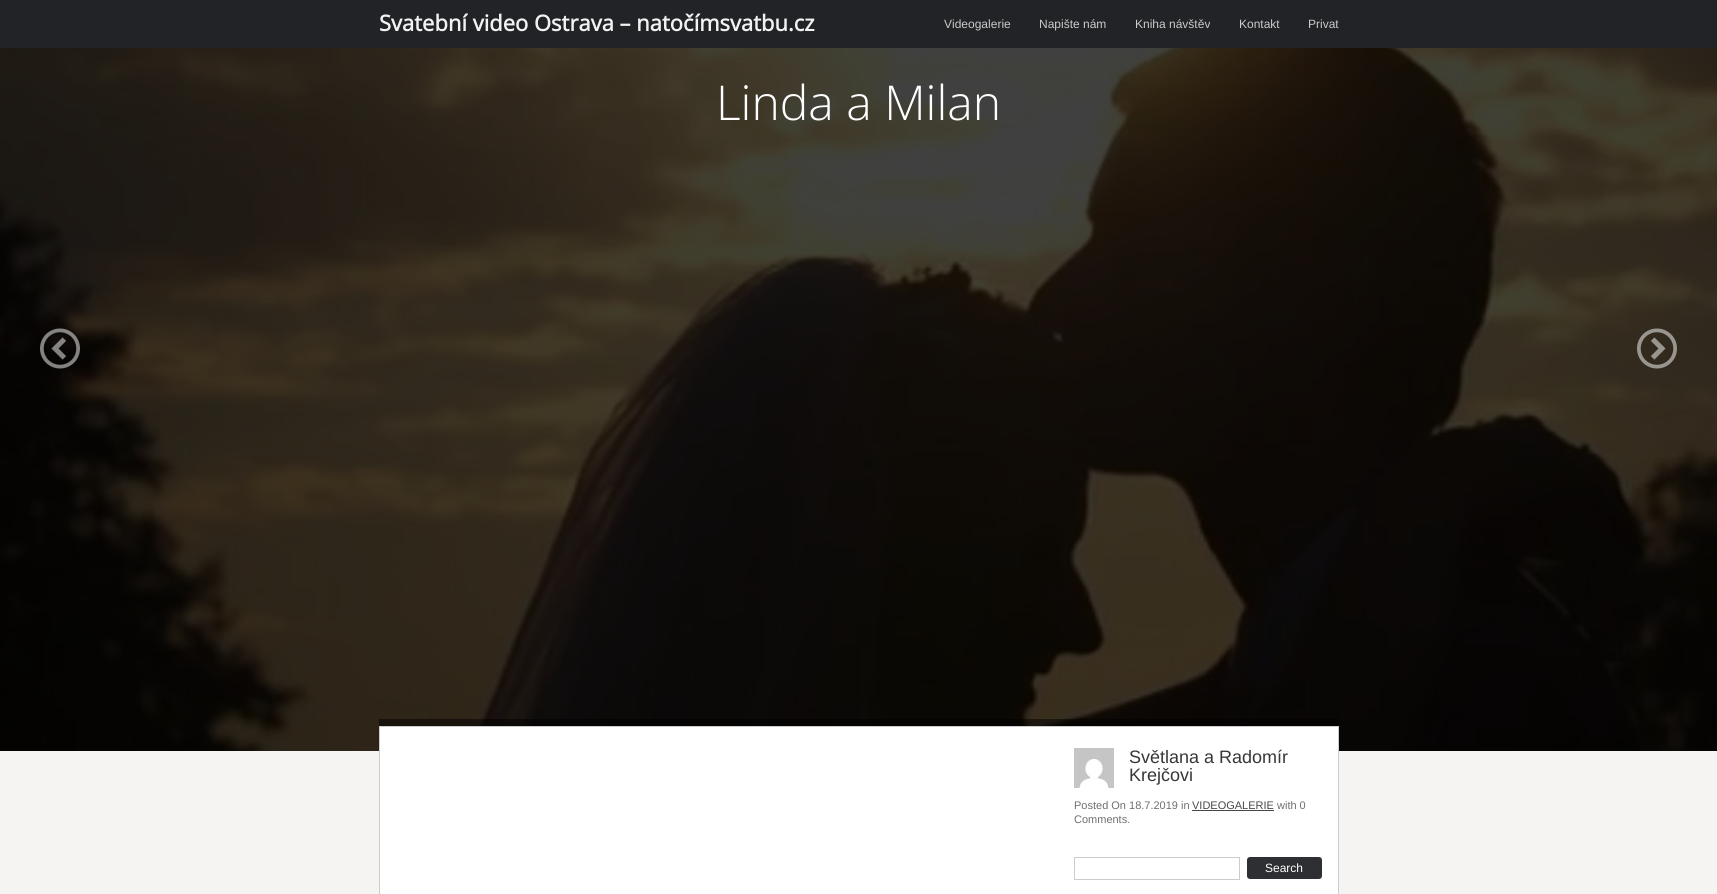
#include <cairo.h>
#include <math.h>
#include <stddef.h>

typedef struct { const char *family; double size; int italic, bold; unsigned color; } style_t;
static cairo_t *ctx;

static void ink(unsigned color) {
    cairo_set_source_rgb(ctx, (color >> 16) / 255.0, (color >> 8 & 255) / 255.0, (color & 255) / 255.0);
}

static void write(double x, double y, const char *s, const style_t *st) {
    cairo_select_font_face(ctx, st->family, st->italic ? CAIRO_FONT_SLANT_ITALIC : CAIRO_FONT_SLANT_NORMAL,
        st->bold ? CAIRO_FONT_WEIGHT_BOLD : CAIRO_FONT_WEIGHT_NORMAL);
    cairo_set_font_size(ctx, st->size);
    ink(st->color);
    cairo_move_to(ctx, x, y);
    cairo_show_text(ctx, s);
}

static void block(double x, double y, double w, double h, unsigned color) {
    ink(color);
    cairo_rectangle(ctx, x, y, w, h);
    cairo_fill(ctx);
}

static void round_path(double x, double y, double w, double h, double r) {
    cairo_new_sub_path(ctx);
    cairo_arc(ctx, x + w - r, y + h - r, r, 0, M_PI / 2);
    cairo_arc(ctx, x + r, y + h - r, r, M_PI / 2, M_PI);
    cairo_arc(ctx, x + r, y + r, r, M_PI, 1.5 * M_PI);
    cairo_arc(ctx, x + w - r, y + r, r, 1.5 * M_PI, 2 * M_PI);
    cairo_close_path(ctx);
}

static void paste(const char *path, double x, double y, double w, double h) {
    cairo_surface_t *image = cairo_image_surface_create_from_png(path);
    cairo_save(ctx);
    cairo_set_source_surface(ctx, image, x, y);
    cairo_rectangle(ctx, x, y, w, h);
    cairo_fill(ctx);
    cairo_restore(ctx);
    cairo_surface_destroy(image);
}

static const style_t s1 = {"Open Sans", 22, 0, 1, 0xf2f2f2};
static const style_t s2 = {"Liberation Sans", 12, 0, 0, 0xcbcbcb};
static const style_t s3 = {"Open Sans Light", 48, 0, 0, 0xffffff};
static const style_t s4 = {"Liberation Sans", 18, 0, 0, 0x373737};
static const style_t s5 = {"Liberation Sans", 11, 0, 0, 0x6f6f6f};
static const style_t s6 = {"Liberation Sans", 11, 0, 0, 0x474747};
static const style_t s7 = {"Liberation Sans", 12, 0, 0, 0xffffff};

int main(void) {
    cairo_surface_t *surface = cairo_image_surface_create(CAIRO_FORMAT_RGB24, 1717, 894);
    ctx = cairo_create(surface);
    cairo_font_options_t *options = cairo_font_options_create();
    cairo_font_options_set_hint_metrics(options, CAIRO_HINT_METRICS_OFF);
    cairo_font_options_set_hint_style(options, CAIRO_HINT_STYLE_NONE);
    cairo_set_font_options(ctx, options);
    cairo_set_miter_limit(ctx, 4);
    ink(0xf6f4f2);
    cairo_paint(ctx);
    block(0, 0, 1717, 48, 0x212326);
    write(379, 31, "Svatební video Ostrava – natočímsvatbu.cz", &s1);
    write(944, 28, "Videogalerie", &s2);
    write(1039, 28, "Napište nám", &s2);
    write(1135, 28, "Kniha návštěv", &s2);
    write(1239, 28, "Kontakt", &s2);
    write(1308, 28, "Privat", &s2);
    paste("pic1.png", 0, 48, 1717, 703);
    write(716, 120, "Linda a Milan", &s3);
    paste("pic2.png", 40, 328, 40, 41);
    paste("pic3.png", 1637, 328, 40, 41);
    cairo_set_source_rgba(ctx, 0, 0, 0, 0.5);
    cairo_rectangle(ctx, 379, 719, 960, 7);
    cairo_fill(ctx);
    ink(0xffffff);
    cairo_rectangle(ctx, 379.5, 726.5, 959, 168);
    cairo_fill_preserve(ctx);
    ink(0xcccccc);
    cairo_set_line_width(ctx, 1);
    cairo_stroke(ctx);
    paste("pic4.png", 1074, 748, 40, 40);
    write(1129, 763, "Světlana a Radomír", &s4);
    write(1129, 781, "Krejčovi", &s4);
    write(1074, 809, "Posted On 18.7.2019 in", &s5);
    write(1192, 809, "VIDEOGALERIE", &s6);
    block(1192, 810, 82, 1, 0x474747);
    write(1277, 809, "with 0", &s5);
    write(1074, 823, "Comments.", &s5);
    cairo_rectangle(ctx, 1074.5, 857.5, 165, 22);
    ink(0xcccccc);
    cairo_stroke(ctx);
    ink(0x2d2f33);
    round_path(1247, 857, 75, 22, 3);
    cairo_fill(ctx);
    write(1265, 872, "Search", &s7);
    cairo_surface_write_to_png(surface, "screenshot.png");
    cairo_font_options_destroy(options);
    cairo_destroy(ctx);
    cairo_surface_destroy(surface);
    return 0;
}
